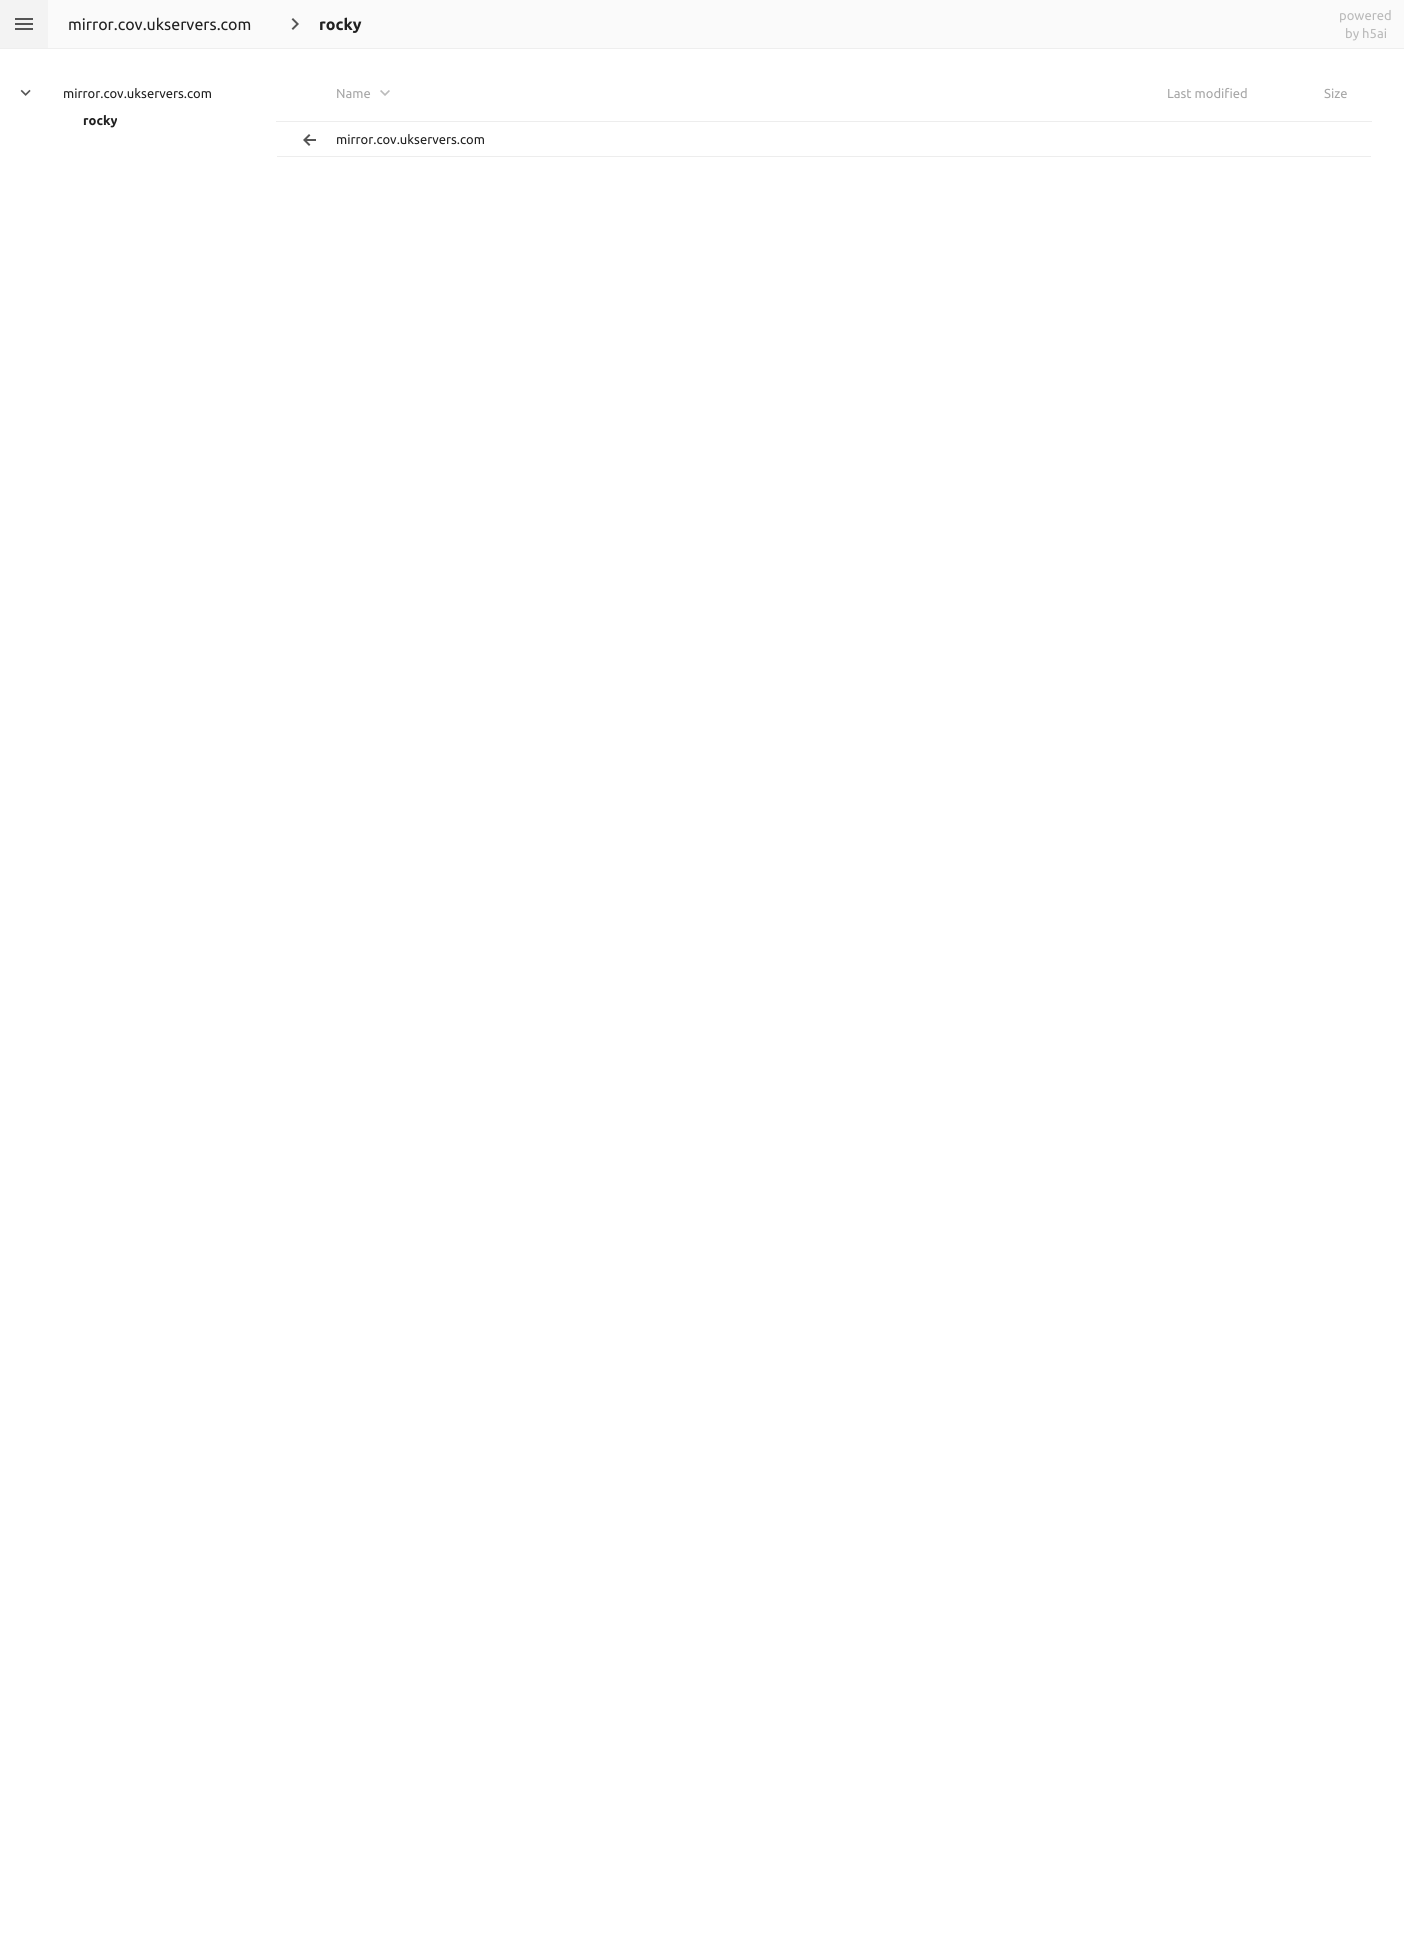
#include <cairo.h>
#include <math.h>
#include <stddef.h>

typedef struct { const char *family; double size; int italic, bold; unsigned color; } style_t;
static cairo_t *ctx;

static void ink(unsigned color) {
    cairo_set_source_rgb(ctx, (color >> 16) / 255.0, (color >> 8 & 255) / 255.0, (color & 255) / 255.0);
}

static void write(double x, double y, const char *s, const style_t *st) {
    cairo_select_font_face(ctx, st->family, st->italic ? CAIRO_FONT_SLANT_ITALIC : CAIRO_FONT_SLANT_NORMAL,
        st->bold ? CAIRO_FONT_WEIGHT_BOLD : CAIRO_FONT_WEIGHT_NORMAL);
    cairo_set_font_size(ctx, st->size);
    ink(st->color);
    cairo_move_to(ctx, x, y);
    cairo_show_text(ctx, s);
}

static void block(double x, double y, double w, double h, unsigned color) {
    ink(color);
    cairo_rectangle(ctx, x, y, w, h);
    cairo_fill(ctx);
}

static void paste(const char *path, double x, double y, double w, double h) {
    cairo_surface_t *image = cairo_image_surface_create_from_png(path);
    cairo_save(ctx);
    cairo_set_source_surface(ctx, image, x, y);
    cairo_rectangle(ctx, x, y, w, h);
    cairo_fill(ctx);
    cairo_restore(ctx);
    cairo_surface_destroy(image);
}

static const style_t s1 = {"Ubuntu", 16, 0, 0, 0x212121};
static const style_t s2 = {"Ubuntu", 16, 0, 1, 0x212121};
static const style_t s3 = {"Ubuntu", 13, 0, 0, 0xb9b9b9};
static const style_t s4 = {"Ubuntu", 13, 0, 0, 0x212121};
static const style_t s5 = {"Ubuntu", 13, 0, 1, 0x212121};
static const style_t s6 = {"Ubuntu", 13, 0, 0, 0xa6a6a6};

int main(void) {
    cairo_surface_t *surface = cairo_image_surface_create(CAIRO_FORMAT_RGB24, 1404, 1950);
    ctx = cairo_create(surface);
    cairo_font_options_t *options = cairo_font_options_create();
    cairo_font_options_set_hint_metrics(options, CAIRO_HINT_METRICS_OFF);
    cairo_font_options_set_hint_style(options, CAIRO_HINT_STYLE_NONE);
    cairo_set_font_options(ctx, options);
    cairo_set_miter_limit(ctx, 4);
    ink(0xffffff);
    cairo_paint(ctx);
    block(48, 0, 1356, 48, 0xfafafa);
    block(0, 48, 1404, 1, 0xeeeeee);
    block(0, 0, 48, 48, 0xf3f3f3);
    paste("pic1.png", 15, 18, 18, 12);
    write(68, 30, "mirror.cov.ukservers.com", &s1);
    paste("pic2.png", 291, 18, 8, 12);
    write(319, 30, "rocky", &s2);
    write(1339, 20, "powered", &s3);
    write(1345, 38, "by h5ai", &s3);
    paste("pic3.png", 20, 89, 11, 7);
    write(63, 98, "mirror.cov.ukservers.com", &s4);
    write(83, 125, "rocky", &s5);
    block(276, 121, 1096, 1, 0xededed);
    write(336, 98, "Name", &s6);
    paste("pic4.png", 380, 90, 10, 6);
    write(1167, 98, "Last modified", &s6);
    write(1324, 98, "Size", &s6);
    block(277, 156, 1094, 1, 0xededed);
    paste("pic5.png", 303, 134, 13, 12);
    write(336, 144, "mirror.cov.ukservers.com", &s4);
    cairo_surface_write_to_png(surface, "screenshot.png");
    cairo_font_options_destroy(options);
    cairo_destroy(ctx);
    cairo_surface_destroy(surface);
    return 0;
}
